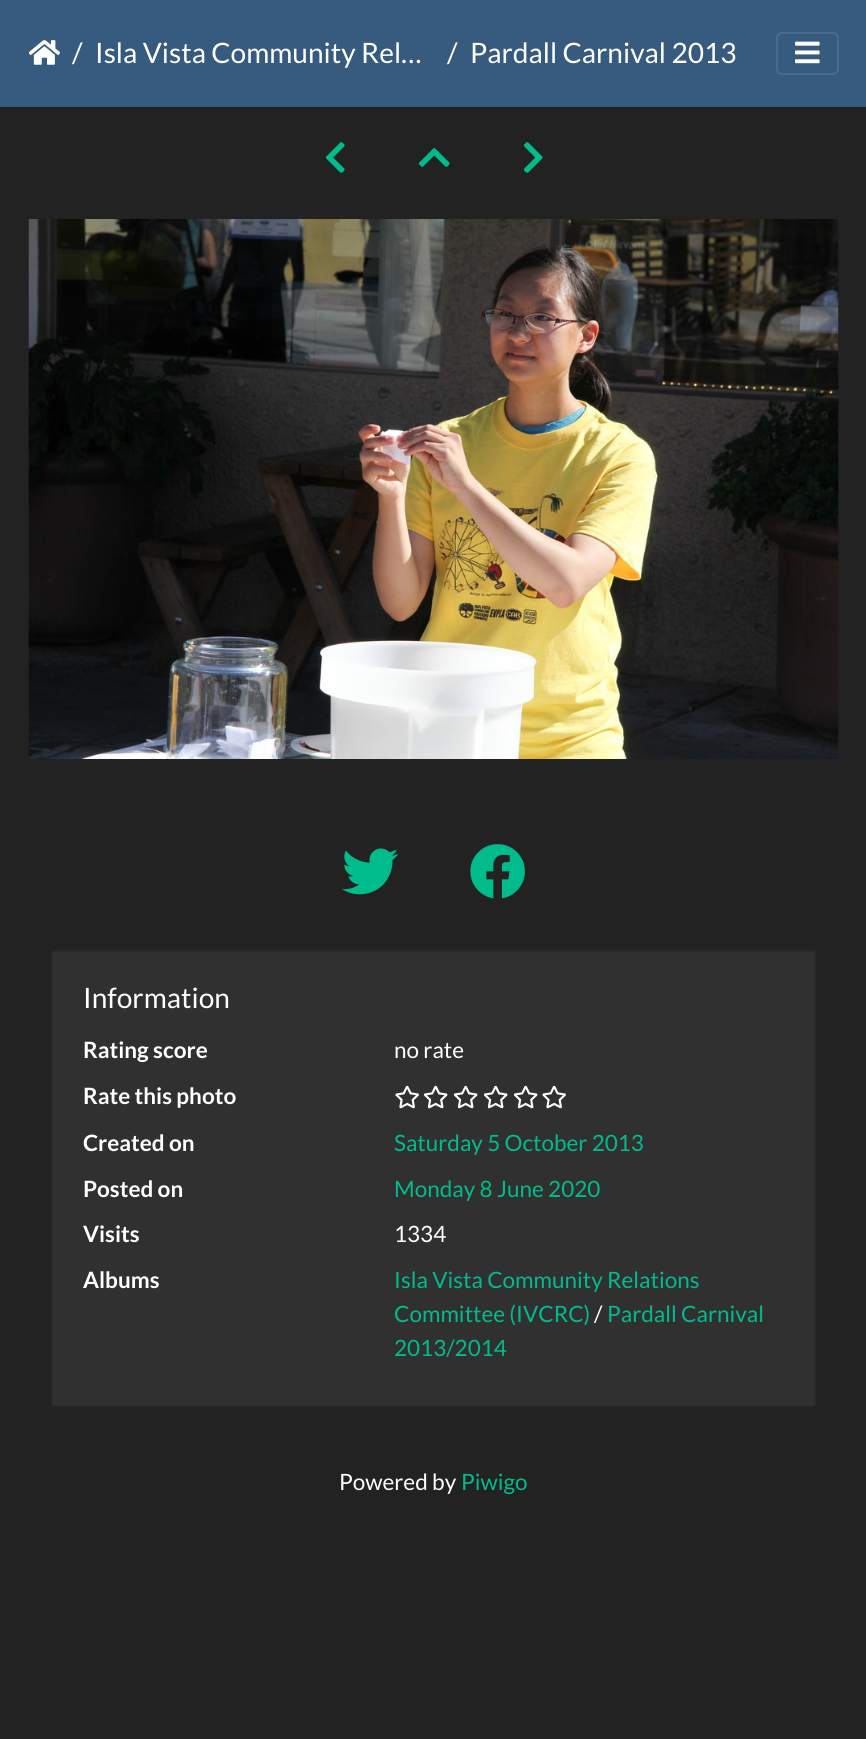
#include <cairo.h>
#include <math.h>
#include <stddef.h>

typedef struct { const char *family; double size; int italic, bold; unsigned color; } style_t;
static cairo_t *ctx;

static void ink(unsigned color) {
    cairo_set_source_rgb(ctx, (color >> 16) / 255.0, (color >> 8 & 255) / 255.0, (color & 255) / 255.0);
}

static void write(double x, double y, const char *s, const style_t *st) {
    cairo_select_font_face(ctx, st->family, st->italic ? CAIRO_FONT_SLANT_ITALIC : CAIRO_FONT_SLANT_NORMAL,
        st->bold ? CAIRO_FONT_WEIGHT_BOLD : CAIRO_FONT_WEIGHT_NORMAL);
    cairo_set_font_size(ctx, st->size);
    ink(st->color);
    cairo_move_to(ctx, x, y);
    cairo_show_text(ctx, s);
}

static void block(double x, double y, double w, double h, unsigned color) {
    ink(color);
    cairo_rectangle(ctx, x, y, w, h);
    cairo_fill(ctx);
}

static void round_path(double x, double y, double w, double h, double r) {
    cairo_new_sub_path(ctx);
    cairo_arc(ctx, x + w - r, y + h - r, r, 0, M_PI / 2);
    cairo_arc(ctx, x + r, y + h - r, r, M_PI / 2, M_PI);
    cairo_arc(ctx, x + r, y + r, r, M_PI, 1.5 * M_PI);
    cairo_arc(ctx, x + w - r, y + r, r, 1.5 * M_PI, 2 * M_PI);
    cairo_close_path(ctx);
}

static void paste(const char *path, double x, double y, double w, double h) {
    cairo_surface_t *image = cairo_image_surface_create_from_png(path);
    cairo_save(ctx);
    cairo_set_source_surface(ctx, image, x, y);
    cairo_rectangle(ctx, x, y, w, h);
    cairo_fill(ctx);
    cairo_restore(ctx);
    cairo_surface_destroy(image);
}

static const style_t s1 = {"Lato", 28.1, 0, 0, 0xffffff};
static const style_t s2 = {"Lato", 22.5, 0, 1, 0xffffff};
static const style_t s3 = {"Lato", 22.5, 0, 0, 0xffffff};
static const style_t s4 = {"Lato", 22.5, 0, 0, 0x00bc8c};

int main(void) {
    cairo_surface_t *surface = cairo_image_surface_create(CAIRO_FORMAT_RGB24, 866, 1739);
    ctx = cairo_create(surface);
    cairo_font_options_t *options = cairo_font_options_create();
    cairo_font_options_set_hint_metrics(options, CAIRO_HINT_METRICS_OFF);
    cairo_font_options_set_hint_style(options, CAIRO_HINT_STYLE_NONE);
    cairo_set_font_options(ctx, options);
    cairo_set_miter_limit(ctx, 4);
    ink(0x222222);
    cairo_paint(ctx);
    block(0, 0, 866, 107, 0x375a7f);
    paste("pic1.png", 29, 40, 31, 25);
    write(72, 63, "/", &s1);
    write(95, 63, "Isla Vista Community Rel…", &s1);
    write(447, 63, "/", &s1);
    write(470, 63, "Pardall Carnival 2013", &s1);
    round_path(777, 33, 61, 41, 5);
    ink(0x4b6b8c);
    cairo_stroke(ctx);
    paste("pic2.png", 795, 41, 25, 23);
    paste("pic3.png", 325, 142, 20, 31);
    paste("pic4.png", 418, 148, 32, 19);
    paste("pic5.png", 524, 142, 19, 31);
    paste("pic6.png", 28, 219, 811, 540);
    paste("pic7.png", 342, 848, 57, 47);
    paste("pic8.png", 470, 844, 55, 55);
    ink(0x303030);
    round_path(51, 950, 765, 457, 3);
    cairo_fill(ctx);
    round_path(52, 951, 763, 455, 2);
    cairo_set_source_rgba(ctx, 0, 0, 0, 0.12);
    cairo_stroke(ctx);
    write(83, 1008, "Information", &s1);
    write(83, 1058, "Rating score", &s2);
    write(394, 1058, "no rate", &s3);
    write(83, 1104, "Rate this photo", &s2);
    paste("pic9.png", 395, 1085, 24, 24);
    paste("pic10.png", 423, 1085, 25, 24);
    paste("pic10.png", 453, 1085, 25, 24);
    paste("pic10.png", 483, 1085, 25, 24);
    paste("pic10.png", 513, 1085, 25, 24);
    paste("pic9.png", 542, 1085, 24, 24);
    write(83, 1151, "Created on", &s2);
    write(394, 1151, "Saturday 5 October 2013", &s4);
    write(83, 1197, "Posted on", &s2);
    write(394, 1197, "Monday 8 June 2020", &s4);
    write(83, 1242, "Visits", &s2);
    write(394, 1242, "1334", &s3);
    write(83, 1288, "Albums", &s2);
    write(394, 1288, "Isla Vista Community Relations", &s4);
    write(394, 1322, "Committee (IVCRC)", &s4);
    write(594, 1322, "/", &s3);
    write(607, 1322, "Pardall Carnival", &s4);
    write(394, 1356, "2013/2014", &s4);
    write(339, 1490, "Powered by", &s3);
    write(461, 1490, "Piwigo", &s4);
    cairo_surface_write_to_png(surface, "screenshot.png");
    cairo_font_options_destroy(options);
    cairo_destroy(ctx);
    cairo_surface_destroy(surface);
    return 0;
}
